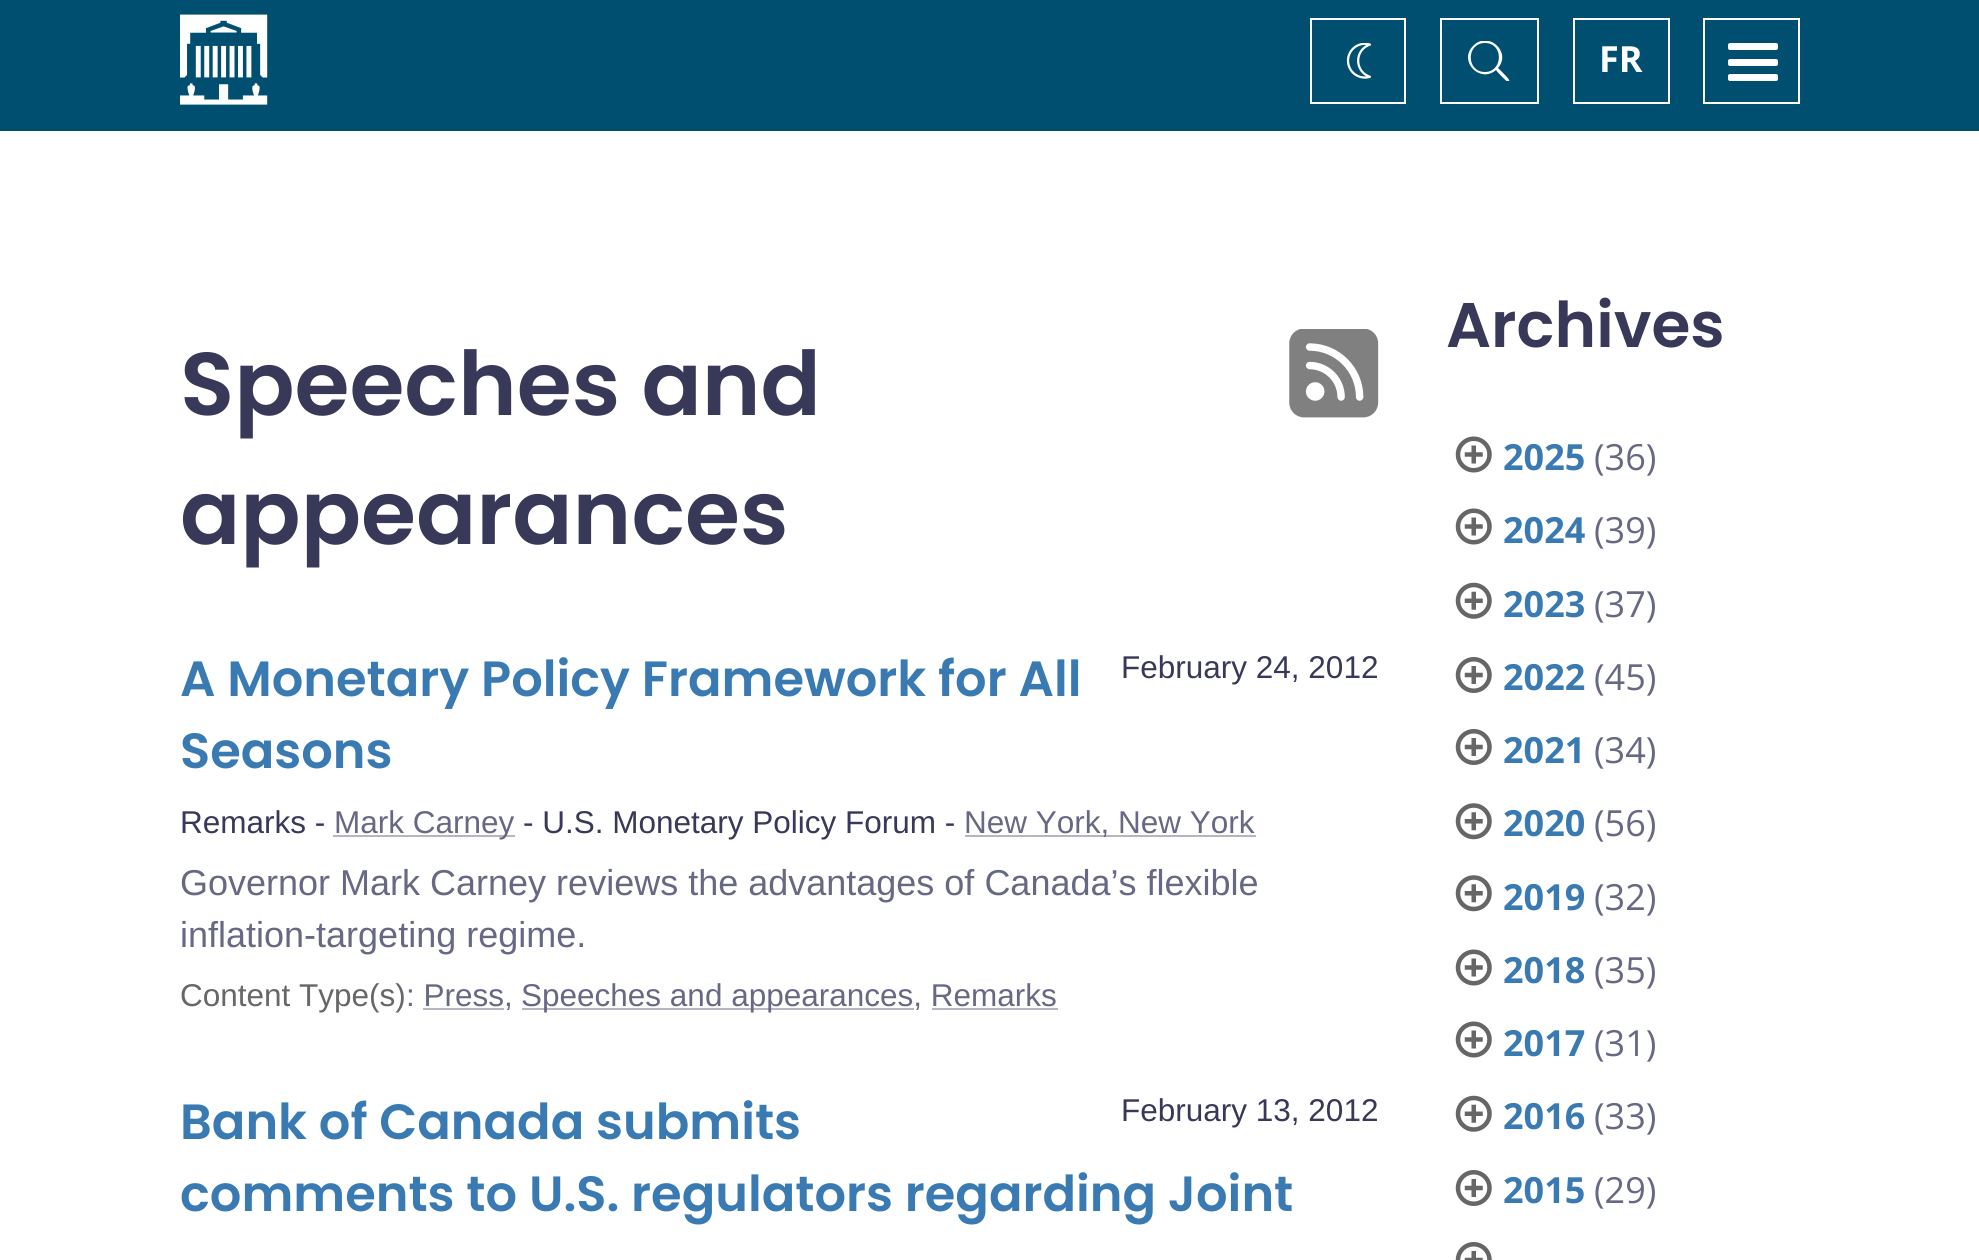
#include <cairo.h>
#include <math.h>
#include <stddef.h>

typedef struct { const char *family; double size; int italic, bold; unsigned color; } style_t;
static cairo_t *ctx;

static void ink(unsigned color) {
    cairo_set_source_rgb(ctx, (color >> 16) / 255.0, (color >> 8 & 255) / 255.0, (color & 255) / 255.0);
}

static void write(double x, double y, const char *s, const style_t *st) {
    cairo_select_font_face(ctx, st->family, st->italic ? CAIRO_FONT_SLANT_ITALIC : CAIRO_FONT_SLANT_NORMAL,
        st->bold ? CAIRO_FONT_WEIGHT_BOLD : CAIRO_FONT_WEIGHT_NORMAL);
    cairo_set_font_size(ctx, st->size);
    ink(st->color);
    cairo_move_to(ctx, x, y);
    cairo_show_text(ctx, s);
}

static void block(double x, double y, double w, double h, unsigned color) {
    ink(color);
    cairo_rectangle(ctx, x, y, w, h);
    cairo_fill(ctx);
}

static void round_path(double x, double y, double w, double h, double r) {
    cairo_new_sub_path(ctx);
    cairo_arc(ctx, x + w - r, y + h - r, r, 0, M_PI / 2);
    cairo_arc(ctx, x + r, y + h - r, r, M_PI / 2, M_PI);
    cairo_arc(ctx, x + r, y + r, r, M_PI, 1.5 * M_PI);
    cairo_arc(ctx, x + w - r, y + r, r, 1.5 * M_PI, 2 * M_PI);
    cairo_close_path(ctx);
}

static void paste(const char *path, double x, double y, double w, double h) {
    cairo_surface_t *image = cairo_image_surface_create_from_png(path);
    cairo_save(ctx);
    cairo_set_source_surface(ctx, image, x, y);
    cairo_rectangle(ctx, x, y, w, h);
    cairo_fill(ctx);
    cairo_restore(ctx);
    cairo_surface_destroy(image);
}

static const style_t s1 = {"Open Sans", 36, 0, 1, 0xffffff};
static const style_t s2 = {"Poppins SemiBold", 89, 0, 0, 0x383859};
static const style_t s3 = {"Poppins SemiBold", 49.5, 0, 0, 0x397ab2};
static const style_t s4 = {"Liberation Sans", 31.5, 0, 0, 0x383859};
static const style_t s5 = {"Liberation Sans", 31.5, 0, 0, 0x676984};
static const style_t s6 = {"Liberation Sans", 36, 0, 0, 0x676984};
static const style_t s7 = {"Liberation Sans", 31.5, 0, 0, 0x686666};
static const style_t s8 = {"Poppins SemiBold", 63, 0, 0, 0x383859};
static const style_t s9 = {"Open Sans", 36, 0, 1, 0x397ab2};
static const style_t s10 = {"Open Sans", 36, 0, 0, 0x676984};

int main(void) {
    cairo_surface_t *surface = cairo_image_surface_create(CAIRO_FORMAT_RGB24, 1979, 1260);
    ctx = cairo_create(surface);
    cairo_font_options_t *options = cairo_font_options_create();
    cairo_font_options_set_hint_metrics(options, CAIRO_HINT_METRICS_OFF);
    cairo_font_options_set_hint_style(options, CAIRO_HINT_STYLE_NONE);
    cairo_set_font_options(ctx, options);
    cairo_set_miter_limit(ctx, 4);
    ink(0xffffff);
    cairo_paint(ctx);
    block(0, 0, 1979, 131, 0x004f71);
    paste("pic1.png", 180, 14, 88, 91);
    cairo_rectangle(ctx, 1311, 19, 94, 84);
    ink(0xffffff);
    cairo_stroke(ctx);
    paste("pic2.png", 1346, 43, 26, 36);
    cairo_rectangle(ctx, 1441, 19, 97, 84);
    cairo_stroke(ctx);
    cairo_save(ctx);
    cairo_rectangle(ctx, 1465, 41, 49, 40);
    cairo_clip(ctx);
    cairo_new_path(ctx);
    cairo_move_to(ctx, 1508, 82);
    cairo_curve_to(ctx, 1507, 82, 1497, 72, 1496, 70);
    cairo_curve_to(ctx, 1480, 84, 1458, 61, 1473, 46);
    cairo_curve_to(ctx, 1488, 30, 1512, 52, 1498, 68);
    cairo_curve_to(ctx, 1504, 74, 1513, 82, 1508, 82);
    cairo_close_path(ctx);
    cairo_move_to(ctx, 1485, 43);
    cairo_curve_to(ctx, 1466, 43, 1466, 72, 1485, 72);
    cairo_curve_to(ctx, 1503, 72, 1504, 43, 1485, 43);
    cairo_close_path(ctx);
    cairo_fill(ctx);
    cairo_restore(ctx);
    cairo_rectangle(ctx, 1574, 19, 95, 84);
    cairo_stroke(ctx);
    write(1599, 72, "FR", &s1);
    cairo_rectangle(ctx, 1704, 19, 95, 84);
    cairo_stroke(ctx);
    round_path(1728, 43, 50, 7, 2);
    cairo_fill(ctx);
    round_path(1728, 59, 50, 7, 2);
    cairo_fill(ctx);
    round_path(1728, 74, 50, 7, 2);
    cairo_fill(ctx);
    write(180, 415, "Speeches and", &s2);
    paste("pic3.png", 1289, 329, 90, 89);
    write(180, 544, "appearances", &s2);
    write(180, 696, "A Monetary Policy Framework for All", &s3);
    write(180, 768, "Seasons", &s3);
    write(1121, 678, "February 24, 2012", &s4);
    write(180, 833, "Remarks -", &s4);
    block(333, 835, 182, 2, 0xb7b5bf);
    write(334, 833, "Mark Carney", &s5);
    write(523, 833, "- U.S. Monetary Policy Forum -", &s4);
    block(965, 835, 291, 2, 0xb7b5bf);
    write(964, 833, "New York, New York", &s5);
    write(180, 895, "Governor Mark Carney reviews the advantages of Canada’s flexible", &s6);
    write(180, 947, "inflation-targeting regime.", &s6);
    write(180, 1006, "Content Type(s)", &s7);
    write(406, 1006, ": Press,", &s5);
    block(423, 1008, 81, 2, 0xb7b5bf);
    block(522, 1008, 392, 2, 0xb7b5bf);
    write(521, 1006, "Speeches and appearances, Remarks", &s5);
    block(932, 1008, 126, 2, 0xb7b5bf);
    write(1121, 1121, "February 13, 2012", &s4);
    write(180, 1139, "Bank of Canada submits", &s3);
    write(180, 1211, "comments to U.S. regulators regarding Joint", &s3);
    write(1446, 347, "Archives", &s8);
    paste("pic4.png", 1455, 436, 37, 37);
    write(1503, 470, "2025", &s9);
    write(1594, 470, "(36)", &s10);
    paste("pic4.png", 1455, 508, 37, 37);
    write(1503, 543, "2024", &s9);
    write(1594, 543, "(39)", &s10);
    paste("pic5.png", 1455, 582, 37, 37);
    write(1503, 617, "2023", &s9);
    write(1594, 617, "(37)", &s10);
    paste("pic6.png", 1455, 657, 37, 36);
    write(1503, 690, "2022", &s9);
    write(1594, 690, "(45)", &s10);
    paste("pic6.png", 1455, 729, 37, 36);
    write(1503, 763, "2021", &s9);
    write(1594, 763, "(34)", &s10);
    paste("pic7.png", 1455, 803, 37, 37);
    write(1503, 836, "2020", &s9);
    write(1594, 836, "(56)", &s10);
    paste("pic7.png", 1455, 875, 37, 37);
    write(1503, 910, "2019", &s9);
    write(1594, 910, "(32)", &s10);
    paste("pic4.png", 1455, 949, 37, 37);
    write(1503, 983, "2018", &s9);
    write(1594, 983, "(35)", &s10);
    paste("pic4.png", 1455, 1021, 37, 37);
    write(1503, 1056, "2017", &s9);
    write(1594, 1056, "(31)", &s10);
    paste("pic5.png", 1455, 1095, 37, 37);
    write(1503, 1129, "2016", &s9);
    write(1594, 1129, "(33)", &s10);
    paste("pic6.png", 1455, 1170, 37, 36);
    write(1503, 1203, "2015", &s9);
    write(1594, 1203, "(29)", &s10);
    paste("pic8.png", 1455, 1242, 37, 18);
    cairo_surface_write_to_png(surface, "screenshot.png");
    cairo_font_options_destroy(options);
    cairo_destroy(ctx);
    cairo_surface_destroy(surface);
    return 0;
}
